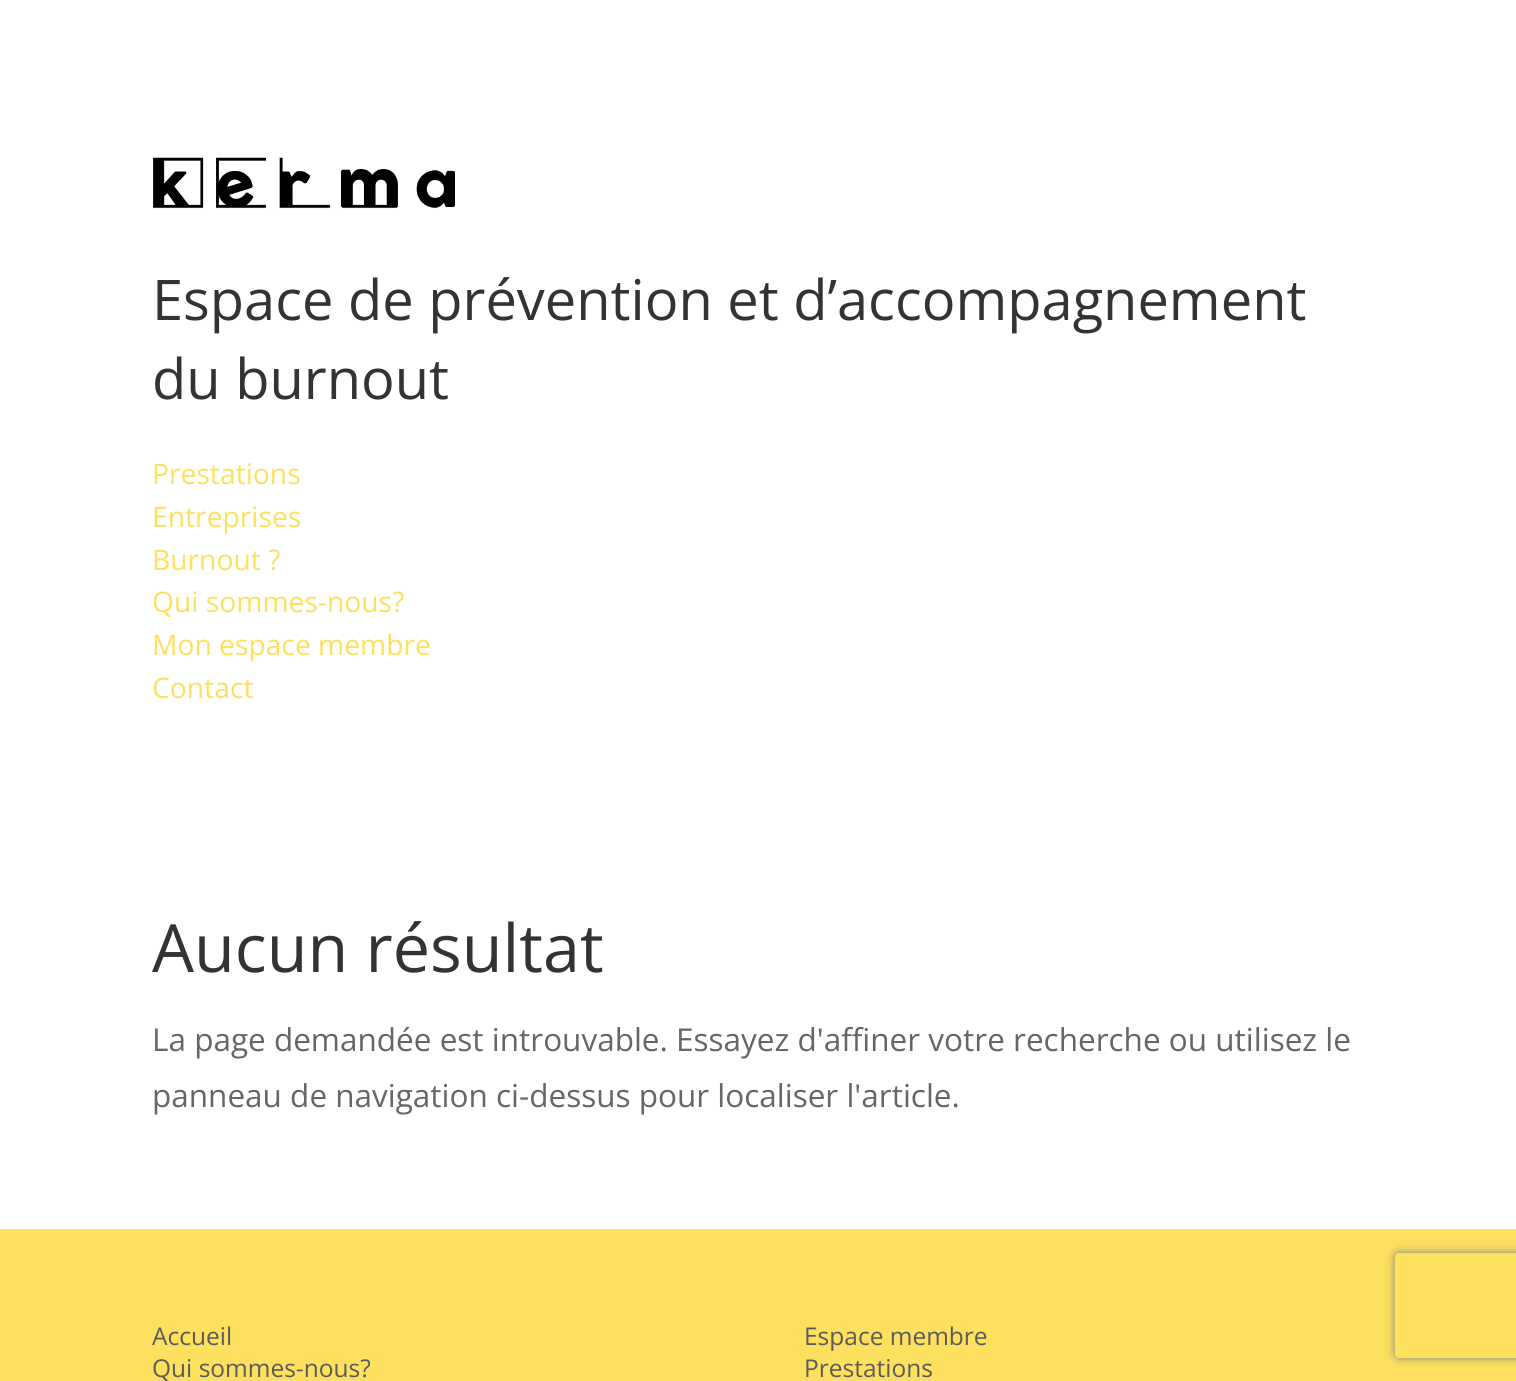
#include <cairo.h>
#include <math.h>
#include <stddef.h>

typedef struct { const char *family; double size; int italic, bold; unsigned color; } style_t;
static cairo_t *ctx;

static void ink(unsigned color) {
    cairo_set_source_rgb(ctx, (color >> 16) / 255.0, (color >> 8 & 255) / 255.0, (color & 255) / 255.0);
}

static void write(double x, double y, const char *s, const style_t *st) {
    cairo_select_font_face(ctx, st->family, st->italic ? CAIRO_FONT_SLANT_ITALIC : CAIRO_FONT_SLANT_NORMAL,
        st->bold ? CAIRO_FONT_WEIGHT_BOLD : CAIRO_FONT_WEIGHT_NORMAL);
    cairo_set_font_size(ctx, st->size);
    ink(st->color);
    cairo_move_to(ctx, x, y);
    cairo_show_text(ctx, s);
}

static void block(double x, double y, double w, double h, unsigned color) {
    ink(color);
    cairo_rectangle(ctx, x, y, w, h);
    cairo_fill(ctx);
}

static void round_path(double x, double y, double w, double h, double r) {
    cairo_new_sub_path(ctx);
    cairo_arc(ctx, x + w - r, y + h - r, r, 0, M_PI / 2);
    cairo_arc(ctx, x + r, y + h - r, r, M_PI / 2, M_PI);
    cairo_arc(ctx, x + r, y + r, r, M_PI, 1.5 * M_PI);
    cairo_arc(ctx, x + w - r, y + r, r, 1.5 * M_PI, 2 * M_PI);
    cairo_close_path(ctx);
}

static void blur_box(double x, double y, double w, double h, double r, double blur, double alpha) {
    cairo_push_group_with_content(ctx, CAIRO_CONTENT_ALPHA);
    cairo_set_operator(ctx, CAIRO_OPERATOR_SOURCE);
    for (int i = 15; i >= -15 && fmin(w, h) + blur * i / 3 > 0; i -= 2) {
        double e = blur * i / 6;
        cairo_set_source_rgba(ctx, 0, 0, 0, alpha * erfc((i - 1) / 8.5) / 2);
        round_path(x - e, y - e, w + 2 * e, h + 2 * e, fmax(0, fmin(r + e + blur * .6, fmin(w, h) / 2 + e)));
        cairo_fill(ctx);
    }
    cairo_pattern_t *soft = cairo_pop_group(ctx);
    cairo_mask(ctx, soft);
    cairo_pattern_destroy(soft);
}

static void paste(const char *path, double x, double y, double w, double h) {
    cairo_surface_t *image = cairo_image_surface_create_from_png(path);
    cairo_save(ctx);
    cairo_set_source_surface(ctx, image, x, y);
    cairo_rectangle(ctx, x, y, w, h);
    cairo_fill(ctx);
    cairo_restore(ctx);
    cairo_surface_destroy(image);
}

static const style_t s1 = {"Open Sans", 56, 0, 0, 0x333333};
static const style_t s2 = {"Open Sans", 28.25, 0, 0, 0xfde05e};
static const style_t s3 = {"Open Sans", 66.5, 0, 0, 0x333333};
static const style_t s4 = {"Open Sans", 31.5, 0, 0, 0x666666};
static const style_t s5 = {"Open Sans", 24.5, 0, 0, 0x5b5b5b};

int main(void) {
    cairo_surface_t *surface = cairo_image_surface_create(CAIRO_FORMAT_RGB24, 1516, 1381);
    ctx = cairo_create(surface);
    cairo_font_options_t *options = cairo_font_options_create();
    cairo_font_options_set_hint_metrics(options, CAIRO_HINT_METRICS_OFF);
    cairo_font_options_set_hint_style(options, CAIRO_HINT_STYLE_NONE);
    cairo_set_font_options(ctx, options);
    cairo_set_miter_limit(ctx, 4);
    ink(0xffffff);
    cairo_paint(ctx);
    paste("pic1.png", 153, 157, 302, 52);
    write(152, 320, "Espace de prévention et d’accompagnement", &s1);
    write(152, 399, "du burnout", &s1);
    write(152, 484, "Prestations", &s2);
    write(152, 527, "Entreprises", &s2);
    write(152, 570, "Burnout ?", &s2);
    write(152, 612, "Qui sommes-nous?", &s2);
    write(152, 655, "Mon espace membre", &s2);
    write(152, 698, "Contact", &s2);
    write(152, 972, "Aucun résultat", &s3);
    write(152, 1051, "La page demandée est introuvable. Essayez d'affiner votre recherche ou utilisez le", &s4);
    write(152, 1107, "panneau de navigation ci-dessus pour localiser l'article.", &s4);
    block(0, 1229, 1516, 152, 0xfde05e);
    write(152, 1345, "Accueil", &s5);
    write(152, 1377, "Qui sommes-nous?", &s5);
    write(804, 1345, "Espace membre", &s5);
    write(804, 1377, "Prestations", &s5);
    cairo_save(ctx);
    cairo_set_fill_rule(ctx, CAIRO_FILL_RULE_EVEN_ODD);
    cairo_new_path(ctx);
    cairo_move_to(ctx, 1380, 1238);
    cairo_line_to(ctx, 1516, 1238);
    cairo_line_to(ctx, 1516, 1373);
    cairo_line_to(ctx, 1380, 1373);
    cairo_close_path(ctx);
    cairo_move_to(ctx, 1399, 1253);
    cairo_line_to(ctx, 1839, 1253);
    cairo_curve_to(ctx, 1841, 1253, 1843, 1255, 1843, 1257);
    cairo_line_to(ctx, 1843, 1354);
    cairo_curve_to(ctx, 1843, 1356, 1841, 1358, 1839, 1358);
    cairo_line_to(ctx, 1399, 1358);
    cairo_curve_to(ctx, 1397, 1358, 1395, 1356, 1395, 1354);
    cairo_line_to(ctx, 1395, 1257);
    cairo_curve_to(ctx, 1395, 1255, 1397, 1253, 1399, 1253);
    cairo_close_path(ctx);
    cairo_clip(ctx);
    ink(0x808080);
    blur_box(1395, 1253, 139, 105, 4, 4.5, 1);
    cairo_restore(ctx);
    cairo_surface_write_to_png(surface, "screenshot.png");
    cairo_font_options_destroy(options);
    cairo_destroy(ctx);
    cairo_surface_destroy(surface);
    return 0;
}
